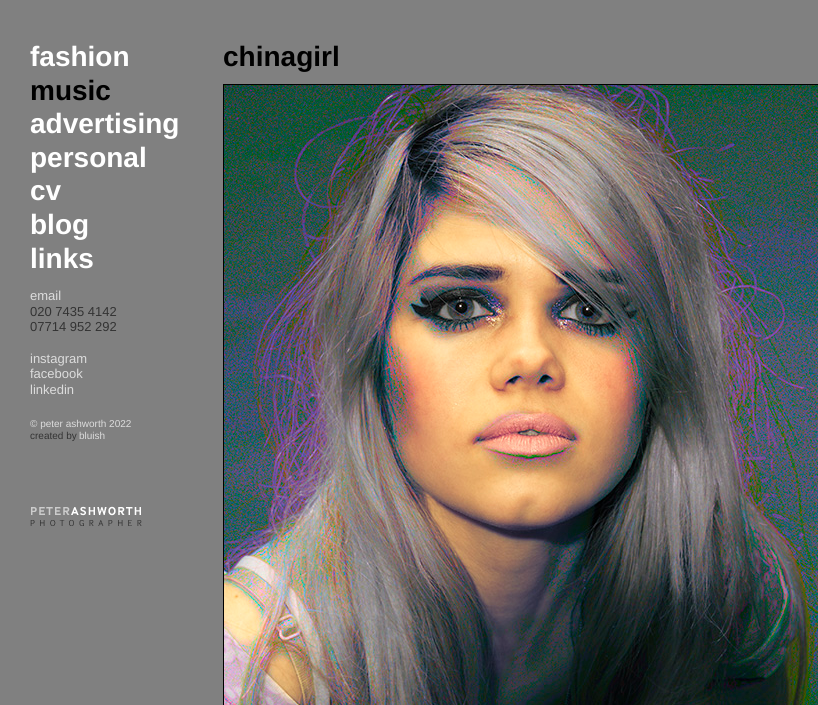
#include <cairo.h>
#include <math.h>
#include <stddef.h>

typedef struct { const char *family; double size; int italic, bold; unsigned color; } style_t;
static cairo_t *ctx;

static void ink(unsigned color) {
    cairo_set_source_rgb(ctx, (color >> 16) / 255.0, (color >> 8 & 255) / 255.0, (color & 255) / 255.0);
}

static void write(double x, double y, const char *s, const style_t *st) {
    cairo_select_font_face(ctx, st->family, st->italic ? CAIRO_FONT_SLANT_ITALIC : CAIRO_FONT_SLANT_NORMAL,
        st->bold ? CAIRO_FONT_WEIGHT_BOLD : CAIRO_FONT_WEIGHT_NORMAL);
    cairo_set_font_size(ctx, st->size);
    ink(st->color);
    cairo_move_to(ctx, x, y);
    cairo_show_text(ctx, s);
}

static void paste(const char *path, double x, double y, double w, double h) {
    cairo_surface_t *image = cairo_image_surface_create_from_png(path);
    cairo_save(ctx);
    cairo_set_source_surface(ctx, image, x, y);
    cairo_rectangle(ctx, x, y, w, h);
    cairo_fill(ctx);
    cairo_restore(ctx);
    cairo_surface_destroy(image);
}

static const style_t s1 = {"Liberation Sans", 28, 0, 1, 0xffffff};
static const style_t s2 = {"Liberation Sans", 28, 0, 1, 0x000000};
static const style_t s3 = {"Liberation Sans", 13, 0, 0, 0xdcdcdc};
static const style_t s4 = {"Liberation Sans", 13, 0, 0, 0x333333};
static const style_t s5 = {"Liberation Sans", 10, 0, 0, 0xdcdcdc};
static const style_t s6 = {"Liberation Sans", 10, 0, 0, 0x333333};

int main(void) {
    cairo_surface_t *surface = cairo_image_surface_create(CAIRO_FORMAT_RGB24, 818, 705);
    ctx = cairo_create(surface);
    cairo_font_options_t *options = cairo_font_options_create();
    cairo_font_options_set_hint_metrics(options, CAIRO_HINT_METRICS_OFF);
    cairo_font_options_set_hint_style(options, CAIRO_HINT_STYLE_NONE);
    cairo_set_font_options(ctx, options);
    cairo_set_miter_limit(ctx, 4);
    ink(0x808080);
    cairo_paint(ctx);
    write(30, 66, "fashion", &s1);
    write(30, 100, "music", &s2);
    write(30, 133, "advertising", &s1);
    write(30, 167, "personal", &s1);
    write(30, 200, "cv", &s1);
    write(30, 234, "blog", &s1);
    write(30, 268, "links", &s1);
    write(30, 300, "email", &s3);
    write(30, 316, "020 7435 4142", &s4);
    write(30, 331, "07714 952 292", &s4);
    write(30, 363, "instagram", &s3);
    write(30, 378, "facebook", &s3);
    write(30, 394, "linkedin", &s3);
    write(30, 427, "© peter ashworth 2022", &s5);
    write(30, 439, "created by", &s6);
    write(79, 439, "bluish", &s5);
    paste("pic1.png", 30, 506, 112, 20);
    write(223, 66, "chinagirl", &s2);
    cairo_rectangle(ctx, 223.5, 84.5, 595, 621);
    cairo_set_line_width(ctx, 1);
    cairo_stroke(ctx);
    paste("pic2.png", 224, 85, 594, 620);
    cairo_surface_write_to_png(surface, "screenshot.png");
    cairo_font_options_destroy(options);
    cairo_destroy(ctx);
    cairo_surface_destroy(surface);
    return 0;
}
